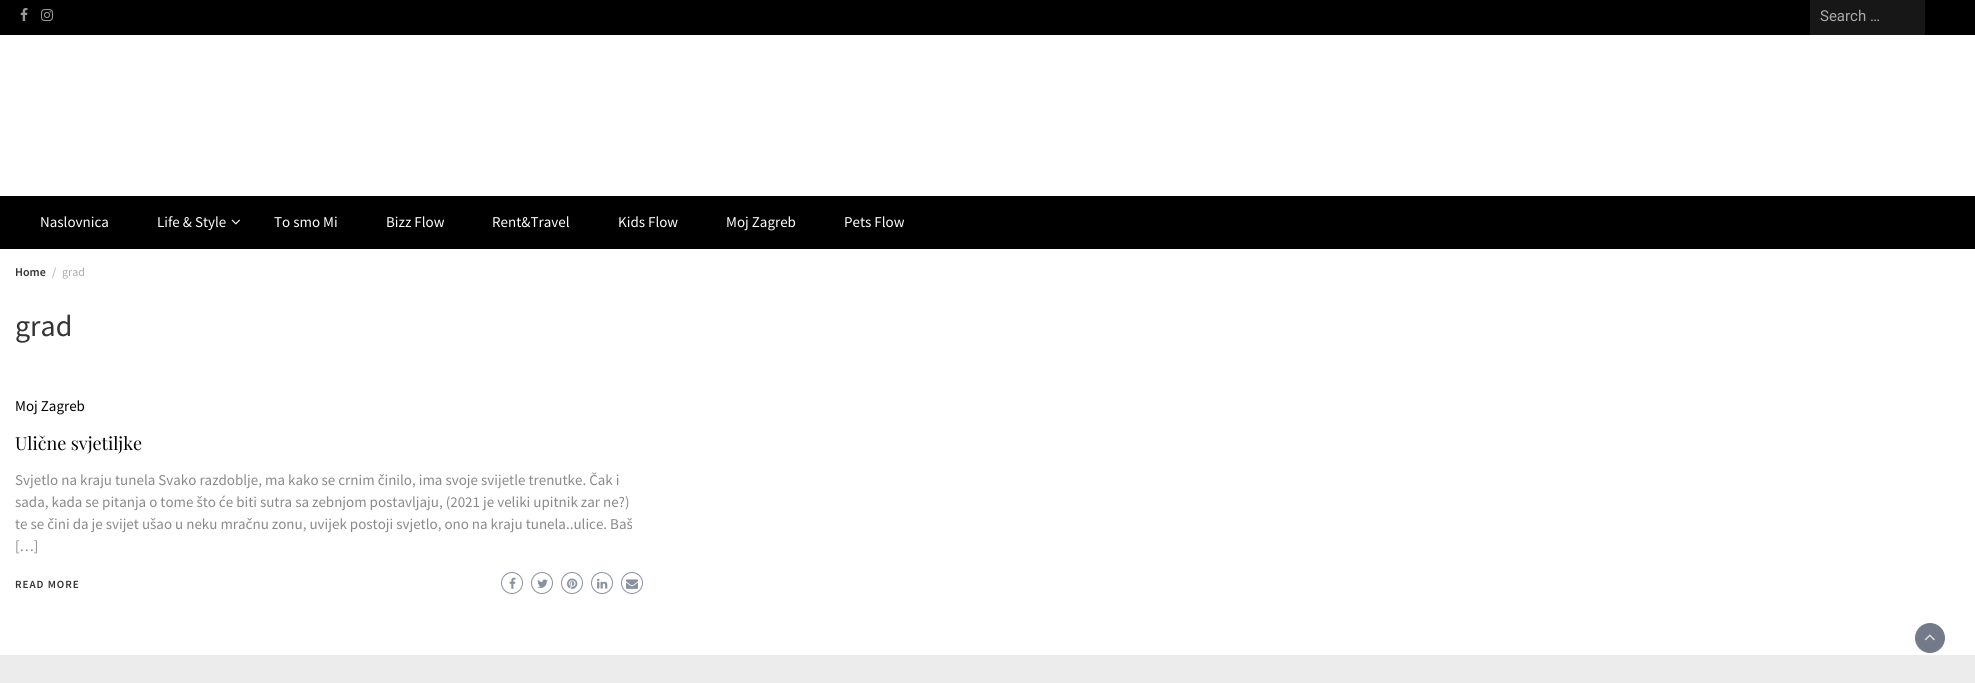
#include <cairo.h>
#include <math.h>
#include <stddef.h>

typedef struct { const char *family; double size; int italic, bold; unsigned color; } style_t;
static cairo_t *ctx;

static void ink(unsigned color) {
    cairo_set_source_rgb(ctx, (color >> 16) / 255.0, (color >> 8 & 255) / 255.0, (color & 255) / 255.0);
}

static void write(double x, double y, const char *s, const style_t *st) {
    cairo_select_font_face(ctx, st->family, st->italic ? CAIRO_FONT_SLANT_ITALIC : CAIRO_FONT_SLANT_NORMAL,
        st->bold ? CAIRO_FONT_WEIGHT_BOLD : CAIRO_FONT_WEIGHT_NORMAL);
    cairo_set_font_size(ctx, st->size);
    ink(st->color);
    cairo_move_to(ctx, x, y);
    cairo_show_text(ctx, s);
}

static void write_spaced(double x, double y, const char *s, double letter, double word) {
    cairo_move_to(ctx, x, y);
    while (*s) {
        char ch[5] = {0};
        int n = 0;
        do ch[n++] = *s++; while ((*s & 0xC0) == 0x80);
        cairo_show_text(ctx, ch);
        cairo_rel_move_to(ctx, letter + word * (*ch == ' '), 0);
    }
}

static void block(double x, double y, double w, double h, unsigned color) {
    ink(color);
    cairo_rectangle(ctx, x, y, w, h);
    cairo_fill(ctx);
}

static void paste(const char *path, double x, double y, double w, double h) {
    cairo_surface_t *image = cairo_image_surface_create_from_png(path);
    cairo_save(ctx);
    cairo_set_source_surface(ctx, image, x, y);
    cairo_rectangle(ctx, x, y, w, h);
    cairo_fill(ctx);
    cairo_restore(ctx);
    cairo_surface_destroy(image);
}

static const style_t s1 = {"Roboto", 15, 0, 0, 0xaaaaaa};
static const style_t s2 = {"Source Sans Pro", 15, 0, 0, 0xffffff};
static const style_t s3 = {"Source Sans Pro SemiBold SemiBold", 12, 0, 0, 0x333333};
static const style_t s4 = {"Source Sans Pro", 12, 0, 0, 0xaaaaaa};
static const style_t s5 = {"Source Sans Pro", 30, 0, 0, 0x333333};
static const style_t s6 = {"Source Sans Pro", 15, 0, 0, 0x000000};
static const style_t s7 = {"Playfair Display", 18, 0, 0, 0x000000};
static const style_t s8 = {"Source Sans Pro", 15, 0, 0, 0x898989};

int main(void) {
    cairo_surface_t *surface = cairo_image_surface_create(CAIRO_FORMAT_RGB24, 1975, 683);
    ctx = cairo_create(surface);
    cairo_font_options_t *options = cairo_font_options_create();
    cairo_font_options_set_hint_metrics(options, CAIRO_HINT_METRICS_OFF);
    cairo_font_options_set_hint_style(options, CAIRO_HINT_STYLE_NONE);
    cairo_set_font_options(ctx, options);
    cairo_set_miter_limit(ctx, 4);
    ink(0xffffff);
    cairo_paint(ctx);
    block(0, 0, 1975, 35, 0x000000);
    paste("pic1.png", 20, 8, 8, 13);
    paste("pic2.png", 41, 9, 12, 12);
    block(1810, 0, 115, 35, 0x171717);
    write(1820, 21, "Search …", &s1);
    block(0, 196, 1975, 53, 0x000000);
    write(40, 227, "Naslovnica", &s2);
    write(157, 227, "Life & Style", &s2);
    paste("pic3.png", 231, 219, 9, 6);
    write(274, 227, "To smo Mi", &s2);
    write(386, 227, "Bizz Flow", &s2);
    write(492, 227, "Rent&Travel", &s2);
    write(618, 227, "Kids Flow", &s2);
    write(726, 227, "Moj Zagreb", &s2);
    write(844, 227, "Pets Flow", &s2);
    write(15, 276, "Home", &s3);
    write(52, 276, "/", &s4);
    write(62, 276, "grad", &s4);
    write(15, 336, "grad", &s5);
    write(15, 411, "Moj Zagreb", &s6);
    write(15, 450, "Ulične svjetiljke", &s7);
    write(15, 485, "Svjetlo na kraju tunela Svako razdoblje, ma kako se crnim činilo, ima svoje svijetle trenutke. Čak i", &s8);
    write(15, 507, "sada, kada se pitanja o tome što će biti sutra sa zebnjom postavljaju, (2021 je veliki upitnik zar ne?)", &s8);
    write(15, 529, "te se čini da je svijet ušao u neku mračnu zonu, uvijek postoji svjetlo, ono na kraju tunela..ulice. Baš", &s8);
    write(15, 551, "[…]", &s8);
    cairo_select_font_face(ctx, "Source Sans Pro SemiBold SemiBold", CAIRO_FONT_SLANT_NORMAL, CAIRO_FONT_WEIGHT_NORMAL);
    cairo_set_font_size(ctx, 11);
    ink(0x333333);
    write_spaced(15, 588, "READ MORE", 1, 0);
    cairo_new_path(ctx);
    cairo_arc(ctx, 512, 583, 10.5, 0, 2 * M_PI);
    ink(0x8990a0);
    cairo_set_line_width(ctx, 1);
    cairo_stroke(ctx);
    paste("pic4.png", 509, 577, 7, 12);
    cairo_arc(ctx, 542, 583, 10.5, 0, 2 * M_PI);
    cairo_stroke(ctx);
    paste("pic5.png", 537, 579, 11, 9);
    cairo_arc(ctx, 572, 583, 10.5, 0, 2 * M_PI);
    cairo_stroke(ctx);
    paste("pic6.png", 567, 578, 11, 11);
    cairo_arc(ctx, 602, 583, 10.5, 0, 2 * M_PI);
    cairo_stroke(ctx);
    paste("pic7.png", 597, 578, 11, 11);
    cairo_arc(ctx, 632, 583, 10.5, 0, 2 * M_PI);
    cairo_stroke(ctx);
    paste("pic8.png", 626, 579, 12, 10);
    ink(0x737a89);
    cairo_arc(ctx, 1930, 638, 15, 0, 2 * M_PI);
    cairo_fill(ctx);
    paste("pic9.png", 1924, 634, 11, 7);
    block(0, 655, 1975, 28, 0xececec);
    cairo_surface_write_to_png(surface, "screenshot.png");
    cairo_font_options_destroy(options);
    cairo_destroy(ctx);
    cairo_surface_destroy(surface);
    return 0;
}
